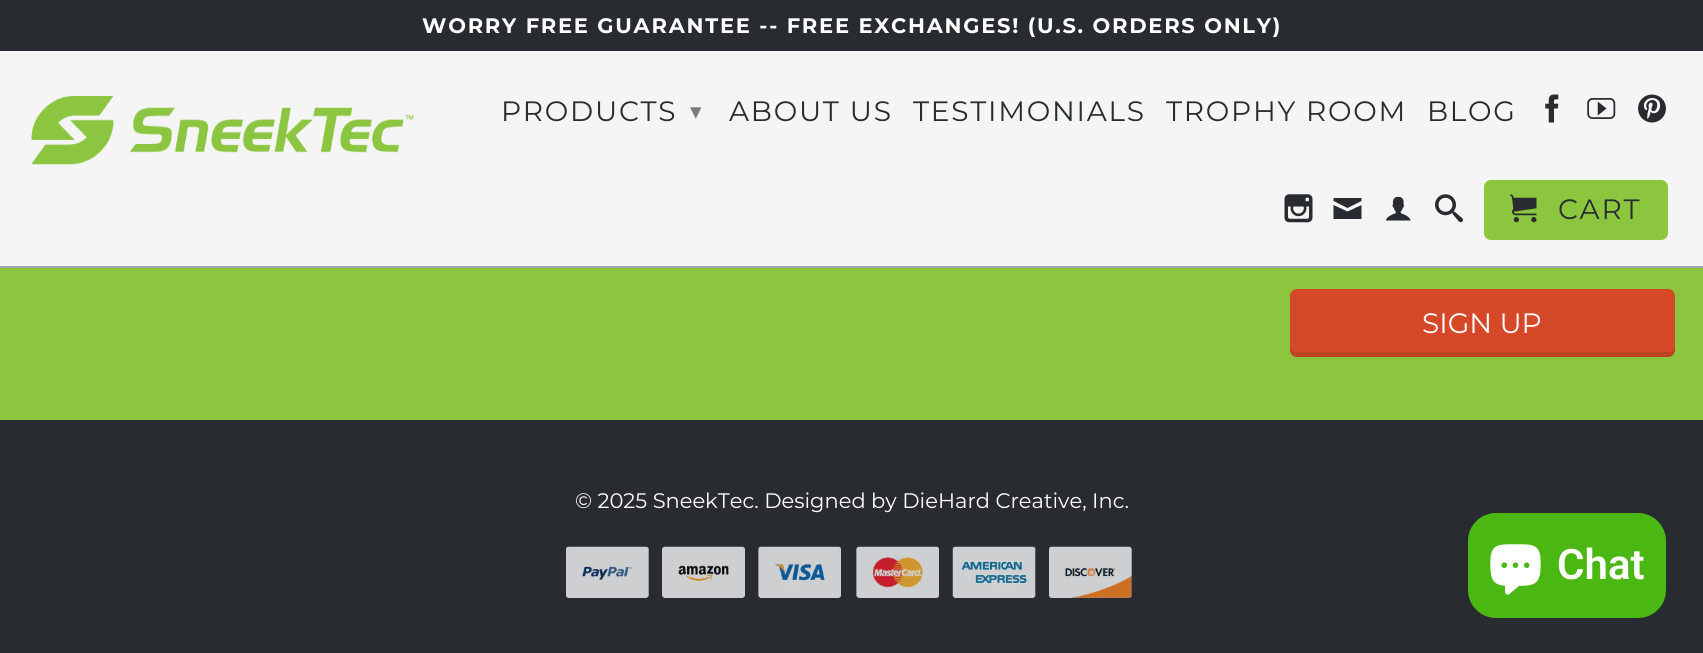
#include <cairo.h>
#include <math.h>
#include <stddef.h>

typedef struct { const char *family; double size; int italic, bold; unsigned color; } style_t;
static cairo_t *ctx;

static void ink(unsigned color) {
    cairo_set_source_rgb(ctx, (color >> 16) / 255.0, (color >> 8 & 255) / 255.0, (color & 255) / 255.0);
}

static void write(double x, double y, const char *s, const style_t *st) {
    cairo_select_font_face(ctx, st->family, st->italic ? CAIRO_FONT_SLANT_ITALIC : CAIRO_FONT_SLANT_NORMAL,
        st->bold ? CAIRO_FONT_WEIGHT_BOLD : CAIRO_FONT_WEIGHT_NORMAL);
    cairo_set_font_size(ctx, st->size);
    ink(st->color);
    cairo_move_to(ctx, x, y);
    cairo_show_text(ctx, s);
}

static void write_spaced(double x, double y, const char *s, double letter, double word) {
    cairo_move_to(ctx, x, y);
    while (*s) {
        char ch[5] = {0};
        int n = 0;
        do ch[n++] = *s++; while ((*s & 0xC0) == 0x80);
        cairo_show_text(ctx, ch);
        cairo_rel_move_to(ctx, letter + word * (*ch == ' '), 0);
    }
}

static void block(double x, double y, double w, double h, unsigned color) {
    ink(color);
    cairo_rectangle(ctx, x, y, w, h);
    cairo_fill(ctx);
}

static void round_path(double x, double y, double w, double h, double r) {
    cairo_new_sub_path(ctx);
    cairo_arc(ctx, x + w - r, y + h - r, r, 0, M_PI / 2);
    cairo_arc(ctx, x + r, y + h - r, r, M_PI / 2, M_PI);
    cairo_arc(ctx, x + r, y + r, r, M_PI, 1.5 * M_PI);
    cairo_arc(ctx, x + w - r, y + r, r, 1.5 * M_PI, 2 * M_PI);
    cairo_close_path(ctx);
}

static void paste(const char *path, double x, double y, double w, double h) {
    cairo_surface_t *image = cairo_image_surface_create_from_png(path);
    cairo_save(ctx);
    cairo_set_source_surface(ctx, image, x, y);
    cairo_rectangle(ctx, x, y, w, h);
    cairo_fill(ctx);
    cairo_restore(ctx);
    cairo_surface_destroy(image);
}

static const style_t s1 = {"Montserrat", 28, 0, 0, 0xffffff};
static const style_t s2 = {"Montserrat", 21, 0, 0, 0xffffff};
static const style_t s3 = {"Roboto SemiBold", 42, 0, 0, 0xffffff};

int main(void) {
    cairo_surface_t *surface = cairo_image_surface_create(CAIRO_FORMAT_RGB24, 1703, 653);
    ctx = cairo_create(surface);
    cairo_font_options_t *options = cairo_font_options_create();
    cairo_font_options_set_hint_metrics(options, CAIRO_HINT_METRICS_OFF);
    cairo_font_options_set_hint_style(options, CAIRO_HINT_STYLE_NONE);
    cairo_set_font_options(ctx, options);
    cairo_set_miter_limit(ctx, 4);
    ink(0x282c30);
    cairo_paint(ctx);
    block(0, 51, 1703, 215, 0xf5f5f5);
    block(0, 266, 1703, 2, 0x9da6ae);
    cairo_select_font_face(ctx, "Montserrat", CAIRO_FONT_SLANT_NORMAL, CAIRO_FONT_WEIGHT_BOLD);
    cairo_set_font_size(ctx, 21);
    ink(0xffffff);
    write_spaced(422, 33, "WORRY FREE GUARANTEE -- FREE EXCHANGES! (U.S. ORDERS ONLY)", 1.75, 0);
    paste("pic1.png", 31, 96, 383, 69);
    cairo_select_font_face(ctx, "Montserrat", CAIRO_FONT_SLANT_NORMAL, CAIRO_FONT_WEIGHT_NORMAL);
    cairo_set_font_size(ctx, 28);
    ink(0x282c30);
    write_spaced(501, 121, "PRODUCTS", 1.75, 0);
    cairo_select_font_face(ctx, "DejaVu Sans", CAIRO_FONT_SLANT_NORMAL, CAIRO_FONT_WEIGHT_NORMAL);
    cairo_set_font_size(ctx, 23);
    ink(0x7a7c7f);
    write_spaced(690, 119, "▾", 1.75, 0);
    cairo_select_font_face(ctx, "Montserrat", CAIRO_FONT_SLANT_NORMAL, CAIRO_FONT_WEIGHT_NORMAL);
    cairo_set_font_size(ctx, 28);
    ink(0x282c30);
    write_spaced(729, 121, "ABOUT US", 1.75, 0);
    write_spaced(913, 121, "TESTIMONIALS", 1.75, 0);
    write_spaced(1166, 121, "TROPHY ROOM", 1.75, 0);
    write_spaced(1427, 121, "BLOG", 1.75, 0);
    paste("pic2.png", 1545, 94, 14, 29);
    paste("pic3.png", 1587, 98, 29, 21);
    paste("pic4.png", 1638, 94, 28, 29);
    paste("pic5.png", 1284, 194, 29, 29);
    cairo_new_path(ctx);
    cairo_move_to(ctx, 1347.5, 208);
    cairo_line_to(ctx, 1333.5, 201);
    cairo_line_to(ctx, 1333.5, 198);
    cairo_line_to(ctx, 1361.5, 198);
    cairo_line_to(ctx, 1361.5, 201);
    cairo_close_path(ctx);
    cairo_move_to(ctx, 1347.5, 211.5);
    cairo_line_to(ctx, 1361.5, 205);
    cairo_line_to(ctx, 1361.5, 219);
    cairo_line_to(ctx, 1333.5, 219);
    cairo_line_to(ctx, 1333.5, 205);
    cairo_close_path(ctx);
    cairo_fill(ctx);
    paste("pic6.png", 1386, 196, 25, 25);
    paste("pic7.png", 1435, 194, 28, 29);
    ink(0x8cc63e);
    round_path(1484, 180, 184, 60, 7);
    cairo_fill(ctx);
    paste("pic8.png", 1510, 194, 27, 29);
    ink(0x282c30);
    write_spaced(1558, 219, "CART", 1.75, 0);
    block(0, 268, 1703, 152, 0x8cc63e);
    ink(0xd54928);
    round_path(1290, 289, 385, 68, 7);
    cairo_fill(ctx);
    cairo_set_source_rgba(ctx, 0, 0, 0, 0.1);
    cairo_new_path(ctx);
    cairo_move_to(ctx, 1290, 345);
    cairo_line_to(ctx, 1290, 350);
    cairo_curve_to(ctx, 1290, 354, 1293, 357, 1297, 357);
    cairo_line_to(ctx, 1668, 357);
    cairo_curve_to(ctx, 1672, 357, 1675, 354, 1675, 350);
    cairo_line_to(ctx, 1675, 345);
    cairo_curve_to(ctx, 1675, 349, 1672, 352, 1668, 352);
    cairo_line_to(ctx, 1297, 352);
    cairo_curve_to(ctx, 1293, 352, 1290, 349, 1290, 345);
    cairo_close_path(ctx);
    cairo_fill(ctx);
    write(1422, 333, "SIGN UP", &s1);
    write(575, 508, "© 2025 SneekTec. Designed by DieHard Creative, Inc.", &s2);
    paste("pic9.png", 566, 546, 83, 52);
    paste("pic10.png", 662, 546, 83, 52);
    paste("pic11.png", 758, 546, 83, 52);
    paste("pic12.png", 856, 546, 83, 52);
    paste("pic13.png", 952, 546, 84, 52);
    paste("pic14.png", 1049, 546, 83, 52);
    ink(0x4bb712);
    round_path(1468, 513, 198, 105, 28);
    cairo_fill(ctx);
    paste("pic15.png", 1490, 544, 51, 51);
    write(1557, 579, "Chat", &s3);
    cairo_surface_write_to_png(surface, "screenshot.png");
    cairo_font_options_destroy(options);
    cairo_destroy(ctx);
    cairo_surface_destroy(surface);
    return 0;
}
